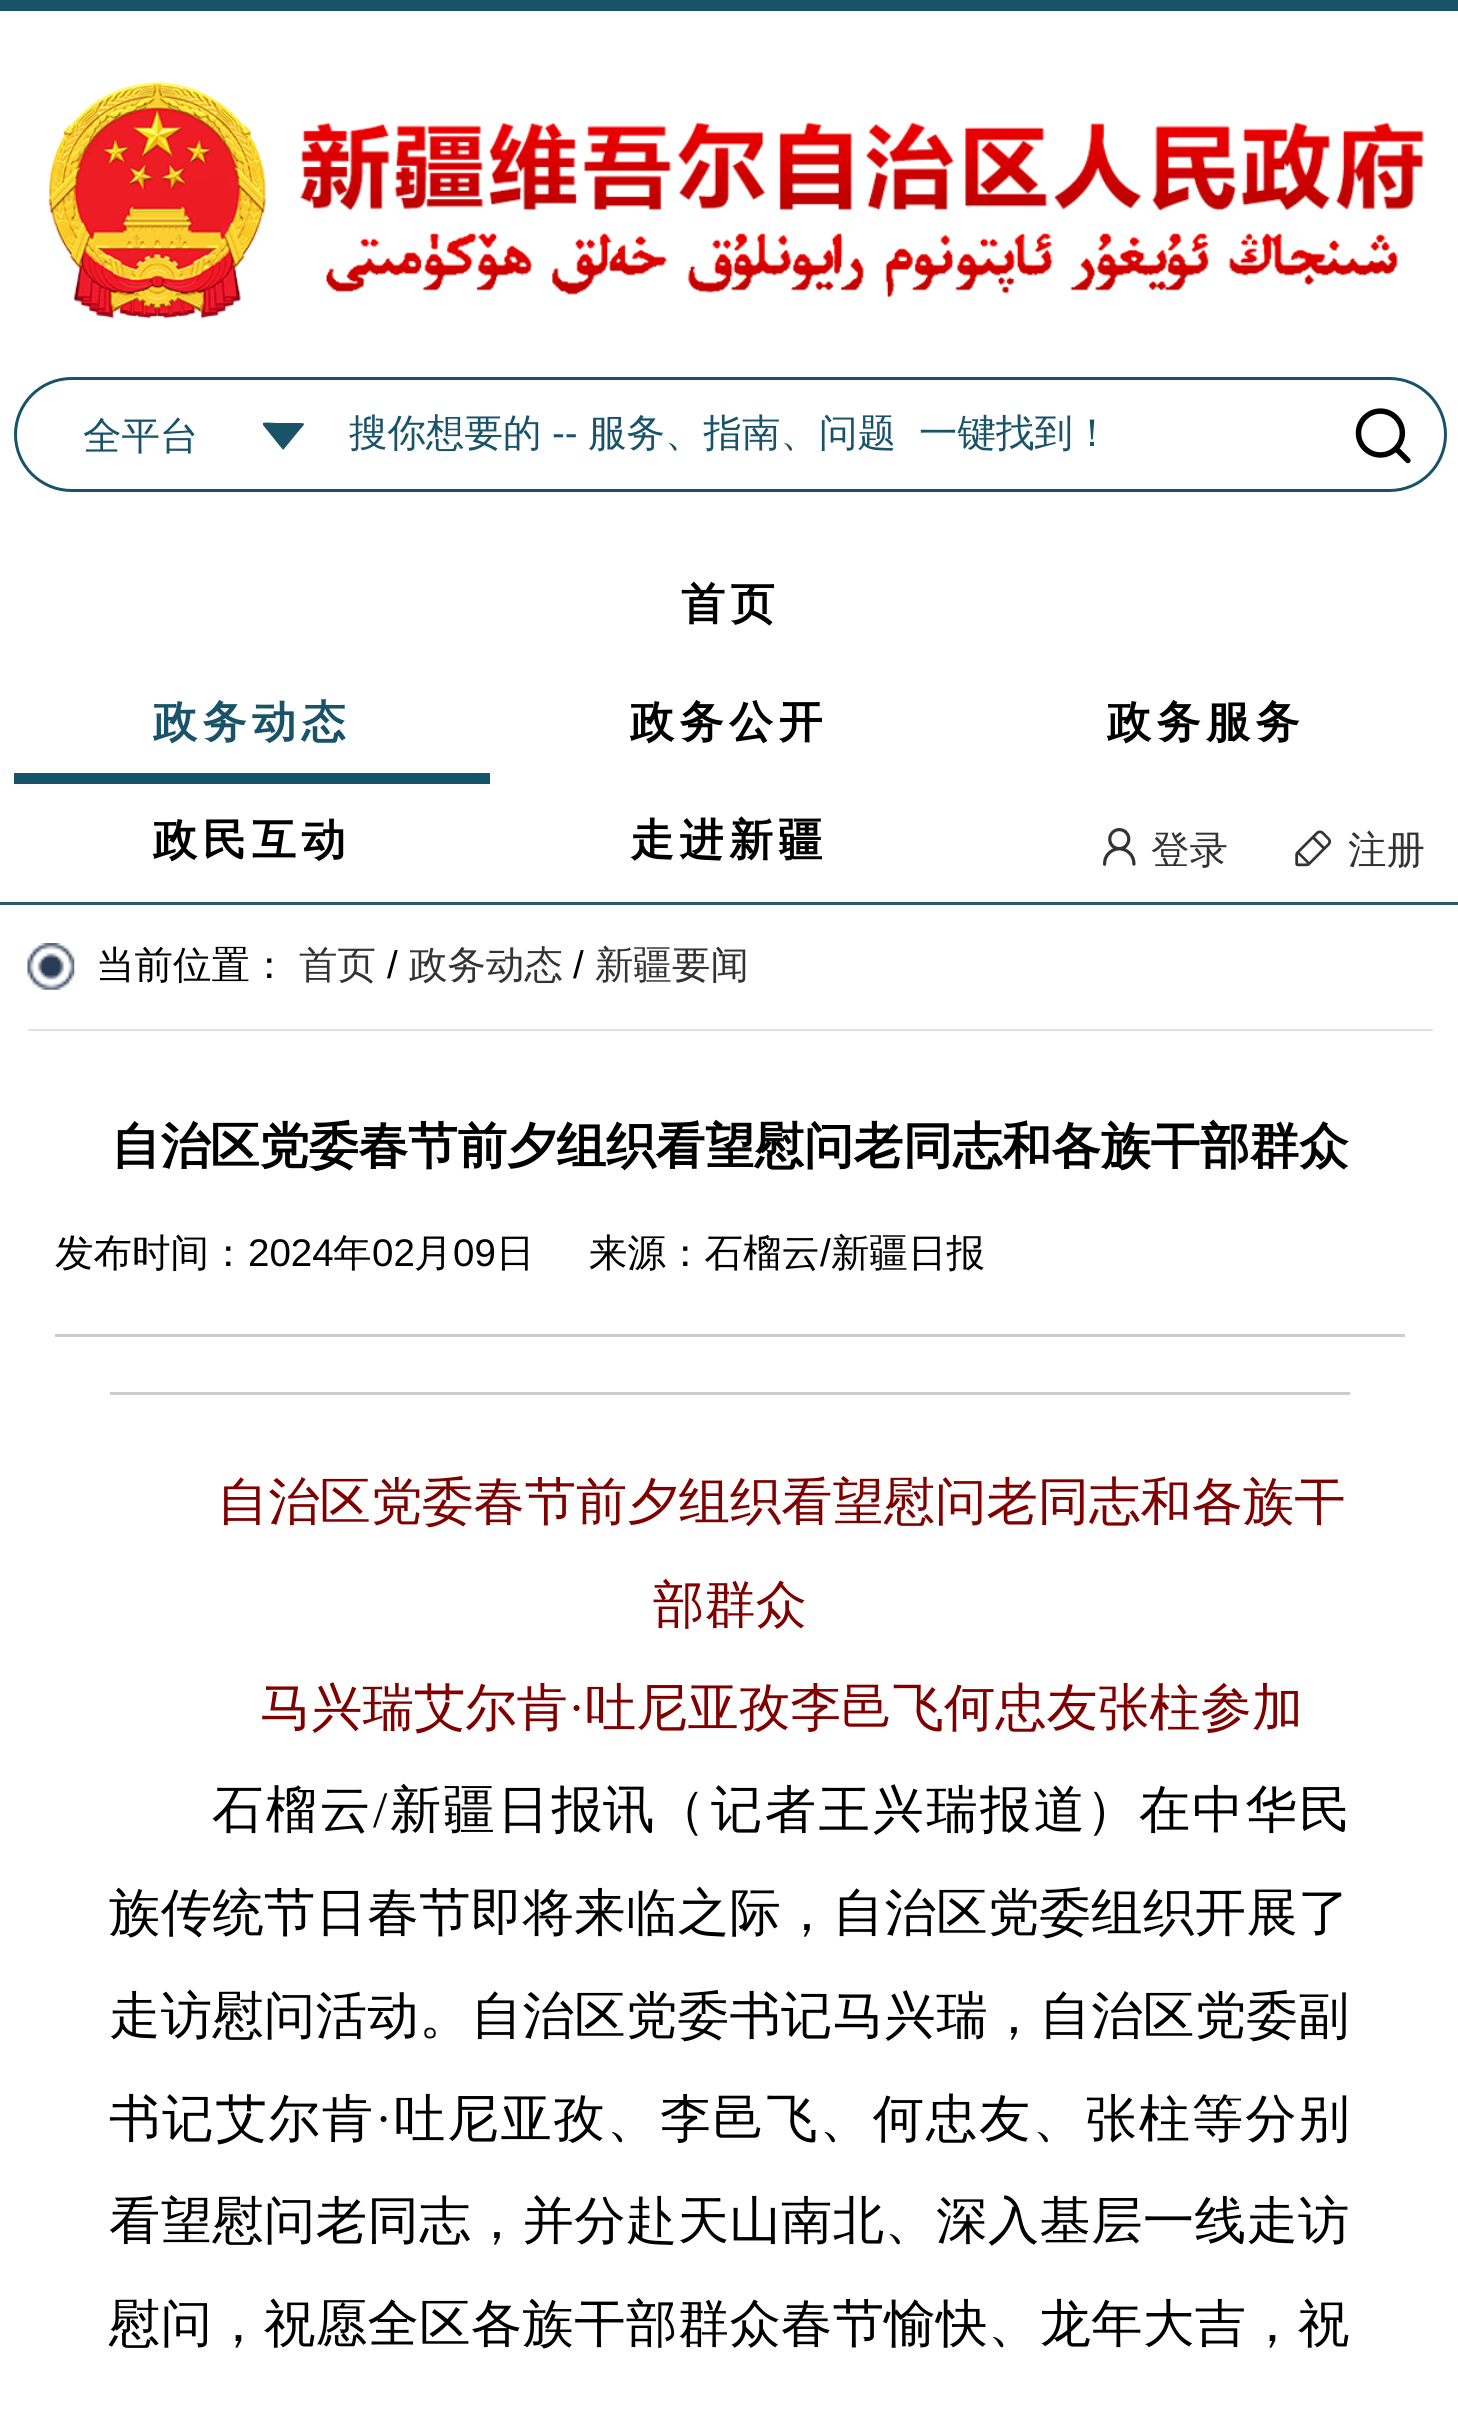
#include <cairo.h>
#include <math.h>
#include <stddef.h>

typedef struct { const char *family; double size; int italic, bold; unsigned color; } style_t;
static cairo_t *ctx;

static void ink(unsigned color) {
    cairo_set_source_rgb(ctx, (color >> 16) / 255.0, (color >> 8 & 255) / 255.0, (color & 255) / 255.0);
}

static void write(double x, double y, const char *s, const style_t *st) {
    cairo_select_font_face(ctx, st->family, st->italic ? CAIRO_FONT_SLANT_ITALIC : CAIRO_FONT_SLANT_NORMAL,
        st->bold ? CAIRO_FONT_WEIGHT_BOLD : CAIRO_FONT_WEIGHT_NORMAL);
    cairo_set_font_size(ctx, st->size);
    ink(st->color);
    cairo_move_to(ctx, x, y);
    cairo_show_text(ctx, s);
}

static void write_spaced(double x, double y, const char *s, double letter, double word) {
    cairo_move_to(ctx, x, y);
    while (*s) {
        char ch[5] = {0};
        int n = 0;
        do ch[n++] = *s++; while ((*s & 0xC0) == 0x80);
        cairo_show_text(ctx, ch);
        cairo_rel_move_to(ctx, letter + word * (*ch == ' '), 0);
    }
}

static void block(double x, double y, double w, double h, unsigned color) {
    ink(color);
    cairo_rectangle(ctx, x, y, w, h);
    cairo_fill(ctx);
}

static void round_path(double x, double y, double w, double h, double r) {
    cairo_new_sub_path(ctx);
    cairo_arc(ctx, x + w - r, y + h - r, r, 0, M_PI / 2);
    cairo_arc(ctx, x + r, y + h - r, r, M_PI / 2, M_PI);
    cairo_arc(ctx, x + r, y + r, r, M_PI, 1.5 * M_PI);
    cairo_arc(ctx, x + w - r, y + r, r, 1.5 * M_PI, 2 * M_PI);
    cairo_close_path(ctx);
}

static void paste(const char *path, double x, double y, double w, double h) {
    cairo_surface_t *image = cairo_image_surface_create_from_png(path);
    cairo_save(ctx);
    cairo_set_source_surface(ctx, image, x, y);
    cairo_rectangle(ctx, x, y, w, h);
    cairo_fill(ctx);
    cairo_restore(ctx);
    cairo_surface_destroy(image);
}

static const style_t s1 = {"WenQuanYi Zen Hei Medium", 38.5, 0, 0, 0x195369};
static const style_t s2 = {"Liberation Sans", 38.5, 0, 0, 0x195369};
static const style_t s3 = {"WenQuanYi Zen Hei Medium", 38.5, 0, 0, 0x333333};
static const style_t s4 = {"WenQuanYi Zen Hei Medium", 38.5, 0, 0, 0x000000};
static const style_t s5 = {"Liberation Sans", 38.5, 0, 0, 0x000000};
static const style_t s6 = {"WenQuanYi Zen Hei", 49.5, 0, 1, 0x000000};
static const style_t s7 = {"WenQuanYi Zen Hei Medium", 51.3, 0, 0, 0x800000};
static const style_t s8 = {"Liberation Serif", 51.3, 0, 0, 0x800000};
static const style_t s9 = {"WenQuanYi Zen Hei Medium", 51.3, 0, 0, 0x000000};

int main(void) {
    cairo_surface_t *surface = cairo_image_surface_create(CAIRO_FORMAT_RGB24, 1458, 2410);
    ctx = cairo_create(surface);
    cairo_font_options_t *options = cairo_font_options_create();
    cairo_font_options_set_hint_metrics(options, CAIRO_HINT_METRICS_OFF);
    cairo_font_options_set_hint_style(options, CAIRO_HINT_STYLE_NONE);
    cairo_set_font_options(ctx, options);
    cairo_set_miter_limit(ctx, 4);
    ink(0xffffff);
    cairo_paint(ctx);
    block(0, 0, 1458, 11, 0x195369);
    paste("pic1.png", 48, 82, 1376, 237);
    round_path(15.5, 378.5, 1430, 112, 56);
    cairo_set_line_width(ctx, 3);
    cairo_stroke(ctx);
    write(83, 449, "全平台", &s1);
    cairo_new_path(ctx);
    cairo_move_to(ctx, 284, 449);
    cairo_line_to(ctx, 297, 433);
    cairo_curve_to(ctx, 305, 423, 308, 423, 296, 423);
    cairo_line_to(ctx, 277, 423);
    cairo_curve_to(ctx, 275, 423, 264, 422, 263, 423);
    cairo_line_to(ctx, 263, 425);
    cairo_line_to(ctx, 279, 445);
    cairo_curve_to(ctx, 281, 447, 283, 451, 284, 449);
    cairo_close_path(ctx);
    cairo_fill(ctx);
    write(349, 446, "搜你想要的", &s1);
    write(552, 446, "--", &s2);
    write(588, 446, "服务、指南、问题  一键找到！", &s1);
    paste("pic2.png", 1355, 408, 56, 56);
    block(0, 902, 1458, 3, 0x2b5a6b);
    cairo_select_font_face(ctx, "WenQuanYi Zen Hei", CAIRO_FONT_SLANT_NORMAL, CAIRO_FONT_WEIGHT_BOLD);
    cairo_set_font_size(ctx, 44);
    ink(0x000000);
    write_spaced(681, 619, "首页", 5.5, 0);
    ink(0x195369);
    write_spaced(153, 737, "政务动态", 5.5, 0);
    block(14, 773, 476, 11, 0x14536a);
    ink(0x000000);
    write_spaced(630, 737, "政务公开", 5.5, 0);
    write_spaced(1107, 737, "政务服务", 5.5, 0);
    write_spaced(153, 855, "政民互动", 5.5, 0);
    write_spaced(630, 855, "走进新疆", 5.5, 0);
    paste("pic3.png", 1103, 828, 33, 38);
    write(1151, 863, "登录", &s3);
    paste("pic4.png", 1295, 830, 36, 37);
    write(1348, 863, "注册", &s3);
    paste("pic5.png", 27, 943, 48, 47);
    block(28, 1029, 1405, 2, 0xe1e1e1);
    write(96, 978, "当前位置：", &s4);
    write(299, 978, "首页", &s3);
    write(387, 978, "/", &s5);
    write(409, 978, "政务动态", &s3);
    write(573, 978, "/", &s5);
    write(595, 978, "新疆要闻", &s3);
    write(111, 1163, "自治区党委春节前夕组织看望慰问老同志和各族干部群众", &s6);
    block(55, 1334, 1350, 3, 0xcccccc);
    write(55, 1266, "发布时间：", &s4);
    write(248, 1266, "2024", &s5);
    write(333, 1266, "年", &s4);
    write(372, 1266, "02", &s5);
    write(414, 1266, "月", &s4);
    write(453, 1266, "09", &s5);
    write(496, 1266, "日", &s4);
    write(589, 1266, "来源：石榴云", &s4);
    write(820, 1266, "/", &s5);
    write(831, 1266, "新疆日报", &s4);
    block(110, 1392, 1240, 3, 0xcccccc);
    write(217, 1519, "自治区党委春节前夕组织看望慰问老同志和各族干", &s7);
    write(653, 1622, "部群众", &s7);
    write(260, 1725, "马兴瑞艾尔肯", &s7);
    write(568, 1725, "·", &s8);
    write(585, 1725, "吐尼亚孜李邑飞何忠友张柱参加", &s7);
    ink(0x000000);
    write_spaced(212, 1827, "石榴云", 2.5, 0);
    cairo_select_font_face(ctx, "Liberation Serif", CAIRO_FONT_SLANT_NORMAL, CAIRO_FONT_WEIGHT_NORMAL);
    write_spaced(373, 1827, "/", 2.5, 0);
    cairo_select_font_face(ctx, "WenQuanYi Zen Hei Medium", CAIRO_FONT_SLANT_NORMAL, CAIRO_FONT_WEIGHT_NORMAL);
    write_spaced(390, 1827, "新疆日报", 2.5, 0);
    write(603, 1827, "讯（", &s9);
    write_spaced(711, 1827, "记者王兴瑞报道", 2.5, 0);
    write(1086, 1827, "）", &s9);
    write_spaced(1139, 1827, "在中华民", 2, 0);
    write_spaced(109, 1930, "族传统节日春节即将来临之际，自治区党委组织开展了", 0.4, 0);
    write_spaced(109, 2033, "走访慰问活动。自治区党委书记马兴瑞，自治区党委副", 0.4, 0);
    write_spaced(109, 2136, "书记艾尔肯", 1.9, 0);
    cairo_select_font_face(ctx, "Liberation Serif", CAIRO_FONT_SLANT_NORMAL, CAIRO_FONT_WEIGHT_NORMAL);
    write_spaced(375, 2136, "·", 1.9, 0);
    cairo_select_font_face(ctx, "WenQuanYi Zen Hei Medium", CAIRO_FONT_SLANT_NORMAL, CAIRO_FONT_WEIGHT_NORMAL);
    write_spaced(394, 2136, "吐尼亚孜、李邑飞、何忠友、张柱等分别", 1.9, 0);
    write_spaced(109, 2238, "看望慰问老同志，并分赴天山南北、深入基层一线走访", 0.4, 0);
    write_spaced(109, 2341, "慰问，祝愿全区各族干部群众春节愉快、龙年大吉，祝", 0.4, 0);
    cairo_surface_write_to_png(surface, "screenshot.png");
    cairo_font_options_destroy(options);
    cairo_destroy(ctx);
    cairo_surface_destroy(surface);
    return 0;
}
